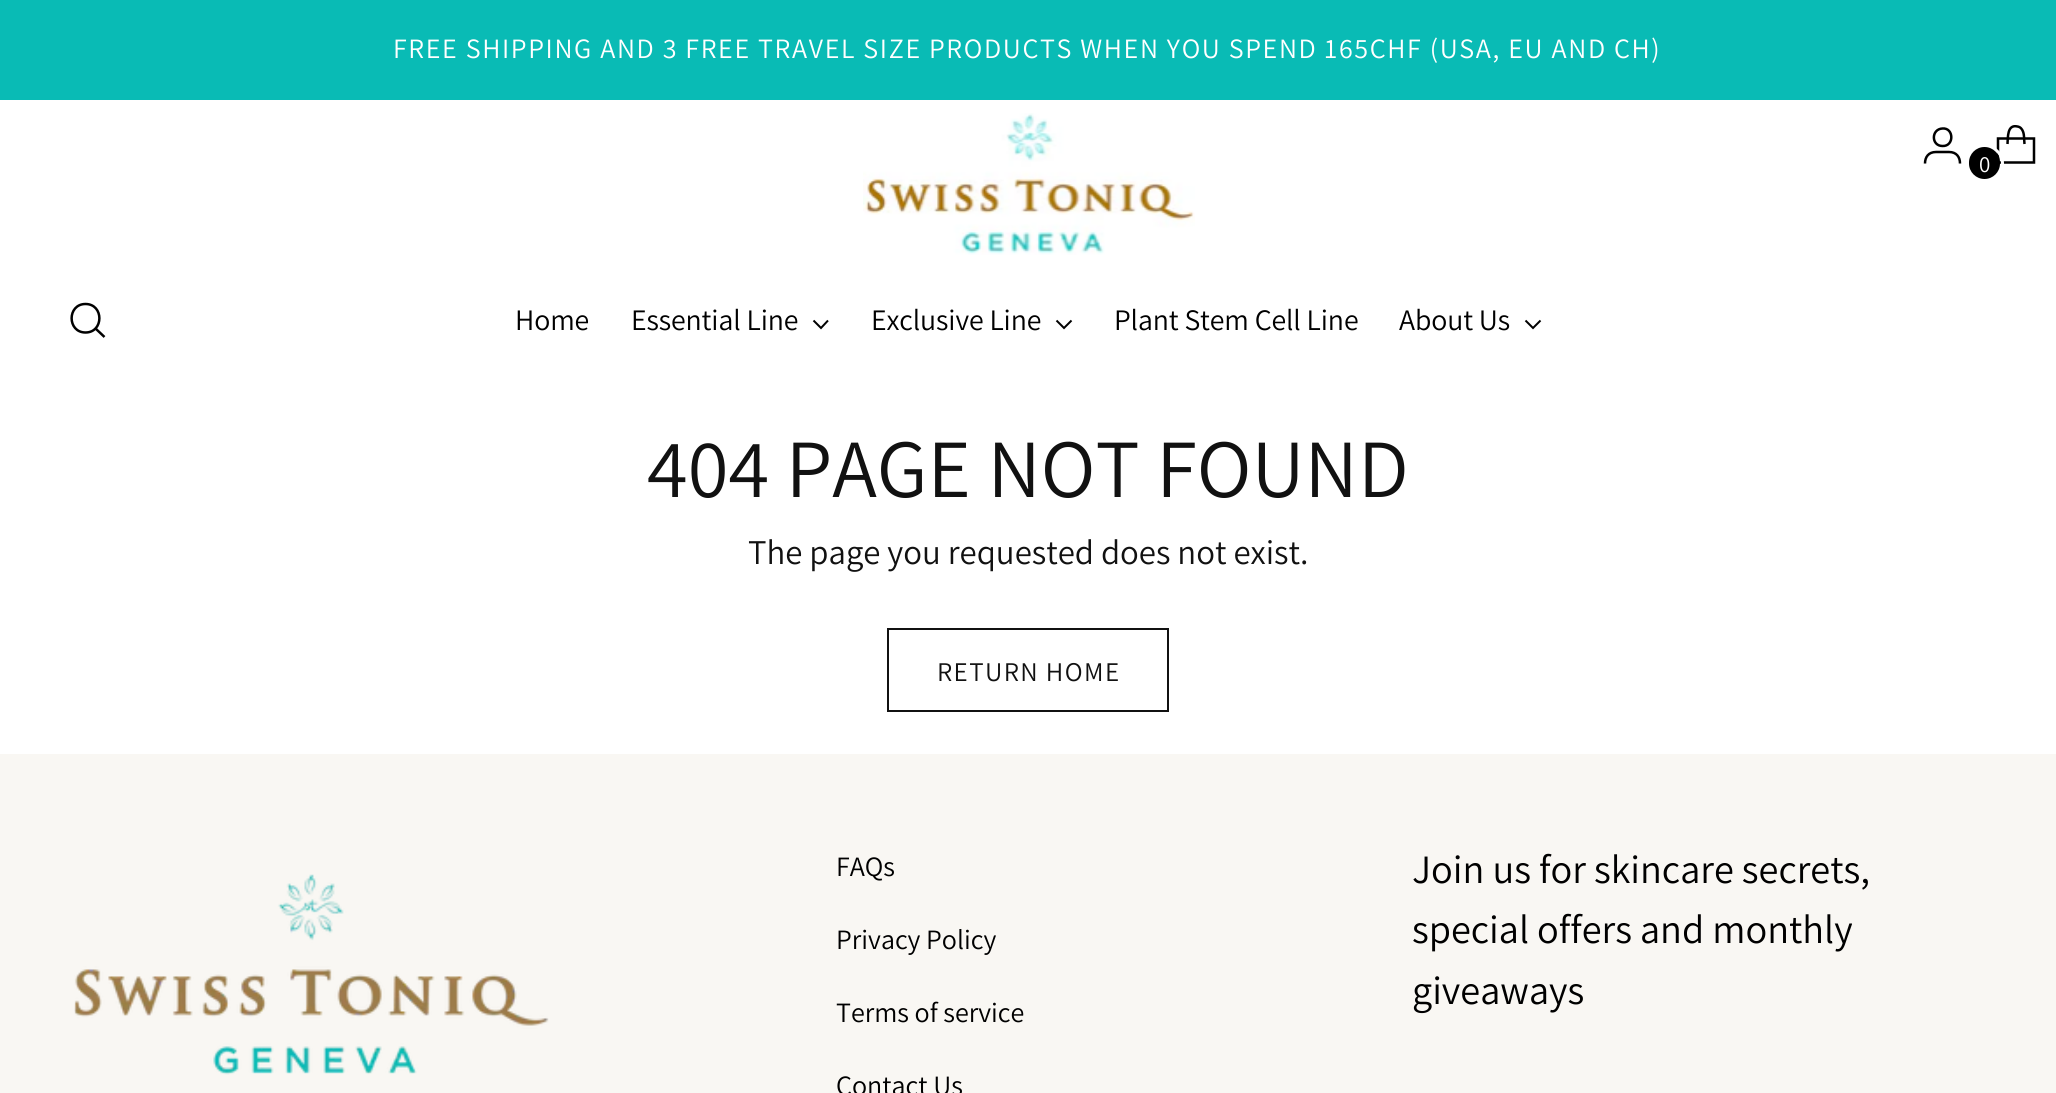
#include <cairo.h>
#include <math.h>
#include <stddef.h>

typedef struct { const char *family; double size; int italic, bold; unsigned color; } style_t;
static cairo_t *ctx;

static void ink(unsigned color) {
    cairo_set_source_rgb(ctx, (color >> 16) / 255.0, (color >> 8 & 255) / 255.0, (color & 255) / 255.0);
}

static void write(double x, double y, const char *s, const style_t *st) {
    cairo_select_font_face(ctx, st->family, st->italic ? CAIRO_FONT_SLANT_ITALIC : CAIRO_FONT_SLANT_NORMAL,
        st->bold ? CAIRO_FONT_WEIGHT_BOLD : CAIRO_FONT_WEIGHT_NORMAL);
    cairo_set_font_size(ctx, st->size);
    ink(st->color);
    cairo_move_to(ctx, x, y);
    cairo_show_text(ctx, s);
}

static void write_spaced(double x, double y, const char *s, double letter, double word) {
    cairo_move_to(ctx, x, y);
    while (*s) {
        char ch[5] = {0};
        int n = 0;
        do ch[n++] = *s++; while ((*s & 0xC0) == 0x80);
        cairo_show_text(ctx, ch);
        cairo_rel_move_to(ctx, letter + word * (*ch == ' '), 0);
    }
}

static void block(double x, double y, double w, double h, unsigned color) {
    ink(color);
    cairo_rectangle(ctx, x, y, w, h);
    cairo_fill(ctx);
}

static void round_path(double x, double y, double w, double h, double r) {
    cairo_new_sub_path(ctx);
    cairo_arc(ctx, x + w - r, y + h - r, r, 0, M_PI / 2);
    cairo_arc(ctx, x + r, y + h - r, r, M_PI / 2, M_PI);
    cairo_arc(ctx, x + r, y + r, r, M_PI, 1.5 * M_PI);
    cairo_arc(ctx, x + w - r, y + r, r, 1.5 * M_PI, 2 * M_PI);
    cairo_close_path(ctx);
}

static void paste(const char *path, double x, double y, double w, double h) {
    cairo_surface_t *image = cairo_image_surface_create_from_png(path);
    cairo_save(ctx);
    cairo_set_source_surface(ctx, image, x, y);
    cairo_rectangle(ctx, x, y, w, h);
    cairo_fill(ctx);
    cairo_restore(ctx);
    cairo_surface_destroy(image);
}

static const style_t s1 = {"Assistant", 23, 0, 0, 0xffffff};
static const style_t s2 = {"Assistant", 82.75, 0, 0, 0x111111};
static const style_t s3 = {"Assistant", 34.75, 0, 0, 0x111111};
static const style_t s4 = {"Assistant", 28, 0, 0, 0x000000};
static const style_t s5 = {"Assistant", 40.25, 0, 0, 0x000000};

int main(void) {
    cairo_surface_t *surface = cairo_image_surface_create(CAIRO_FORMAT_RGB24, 2056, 1093);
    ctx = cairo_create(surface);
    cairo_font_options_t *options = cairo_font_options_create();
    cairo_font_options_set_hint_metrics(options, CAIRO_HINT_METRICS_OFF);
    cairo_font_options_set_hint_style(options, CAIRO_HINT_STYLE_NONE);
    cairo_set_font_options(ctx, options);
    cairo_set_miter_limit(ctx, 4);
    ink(0xffffff);
    cairo_paint(ctx);
    block(0, 0, 2056, 100, 0x09bbb5);
    cairo_select_font_face(ctx, "Assistant", CAIRO_FONT_SLANT_NORMAL, CAIRO_FONT_WEIGHT_NORMAL);
    cairo_set_font_size(ctx, 28);
    ink(0xffffff);
    write_spaced(393, 58, "FREE SHIPPING AND 3 FREE TRAVEL SIZE PRODUCTS WHEN YOU SPEND 165CHF (USA, EU AND CH)", 1.65, 0);
    paste("pic1.png", 863, 113, 332, 142);
    cairo_new_path(ctx);
    cairo_move_to(ctx, 1942.5, 146);
    cairo_curve_to(ctx, 1954.5, 146.5, 1954, 127.5, 1942.5, 128.5);
    cairo_curve_to(ctx, 1931, 129, 1931, 146, 1942.5, 146);
    cairo_close_path(ctx);
    cairo_move_to(ctx, 1925, 163.5);
    cairo_curve_to(ctx, 1925, 157, 1928.5, 152, 1936, 152);
    cairo_line_to(ctx, 1949, 152);
    cairo_curve_to(ctx, 1956.5, 152, 1960, 157, 1960, 163.5);
    ink(0x000000);
    cairo_set_line_width(ctx, 2.5);
    cairo_stroke(ctx);
    cairo_new_path(ctx);
    cairo_move_to(ctx, 2024.5, 144);
    cairo_curve_to(ctx, 2024, 140, 2024.5, 135.5, 2023, 131.5);
    cairo_curve_to(ctx, 2022, 129, 2020.5, 127, 2017.5, 126.5);
    cairo_curve_to(ctx, 2007, 124, 2008, 137.5, 2007.5, 144);
    cairo_set_line_join(ctx, CAIRO_LINE_JOIN_BEVEL);
    cairo_stroke(ctx);
    cairo_new_path(ctx);
    cairo_move_to(ctx, 2034, 162.5);
    cairo_line_to(ctx, 2034, 138.5);
    cairo_line_to(ctx, 1998, 138.5);
    cairo_line_to(ctx, 1998, 162.5);
    cairo_close_path(ctx);
    cairo_set_line_join(ctx, CAIRO_LINE_JOIN_MITER);
    cairo_stroke(ctx);
    cairo_arc(ctx, 1985.5, 163.5, 17, 0, 2 * M_PI);
    ink(0xffffff);
    cairo_set_line_width(ctx, 3);
    cairo_stroke(ctx);
    ink(0x000000);
    round_path(1969, 147, 31, 32, 15.5);
    cairo_fill(ctx);
    write(1979, 172, "0", &s1);
    cairo_new_path(ctx);
    cairo_move_to(ctx, 85.5, 332.5);
    cairo_curve_to(ctx, 104, 332.5, 104, 304, 85.5, 304);
    cairo_curve_to(ctx, 67, 304, 67, 332.5, 85.5, 332.5);
    cairo_close_path(ctx);
    ink(0x000000);
    cairo_set_line_width(ctx, 2.5);
    cairo_set_line_cap(ctx, CAIRO_LINE_CAP_ROUND);
    cairo_stroke(ctx);
    cairo_new_path(ctx);
    cairo_move_to(ctx, 95.5, 328.5);
    cairo_line_to(ctx, 104.5, 337);
    cairo_set_line_cap(ctx, CAIRO_LINE_CAP_BUTT);
    cairo_stroke(ctx);
    cairo_set_font_size(ctx, 29.75);
    write_spaced(515, 330, "Home", -0.1, 0);
    write_spaced(631, 330, "Essential Line", -0.1, 0);
    cairo_new_path(ctx);
    cairo_move_to(ctx, 813.5, 320.5);
    cairo_line_to(ctx, 821, 328);
    cairo_line_to(ctx, 828, 320.5);
    cairo_set_line_width(ctx, 2);
    cairo_stroke(ctx);
    write_spaced(871, 330, "Exclusive Line", -0.1, 0);
    cairo_new_path(ctx);
    cairo_move_to(ctx, 1056.5, 320.5);
    cairo_line_to(ctx, 1064, 328);
    cairo_line_to(ctx, 1071.5, 320.5);
    cairo_stroke(ctx);
    write_spaced(1114, 330, "Plant Stem Cell Line", -0.1, 0);
    write_spaced(1399, 330, "About Us", -0.1, 0);
    cairo_new_path(ctx);
    cairo_move_to(ctx, 1525.5, 320.5);
    cairo_line_to(ctx, 1533, 328);
    cairo_line_to(ctx, 1540.5, 320.5);
    cairo_stroke(ctx);
    write(647, 497, "404 PAGE NOT FOUND", &s2);
    write(748, 564, "The page you requested does not exist.", &s3);
    cairo_rectangle(ctx, 888, 629, 280, 82);
    cairo_stroke(ctx);
    cairo_set_font_size(ctx, 27);
    write_spaced(937, 681, "RETURN HOME", 1.4, 0);
    block(0, 754, 2056, 339, 0xf9f7f3);
    paste("pic2.png", 74, 874, 475, 201);
    write(836, 876, "FAQs", &s4);
    write(836, 949, "Privacy Policy", &s4);
    write(836, 1022, "Terms of service", &s4);
    write(836, 1095, "Contact Us", &s4);
    write(1412, 883, "Join us for skincare secrets,", &s5);
    write(1412, 943, "special offers and monthly", &s5);
    write(1412, 1004, "giveaways", &s5);
    cairo_surface_write_to_png(surface, "screenshot.png");
    cairo_font_options_destroy(options);
    cairo_destroy(ctx);
    cairo_surface_destroy(surface);
    return 0;
}
